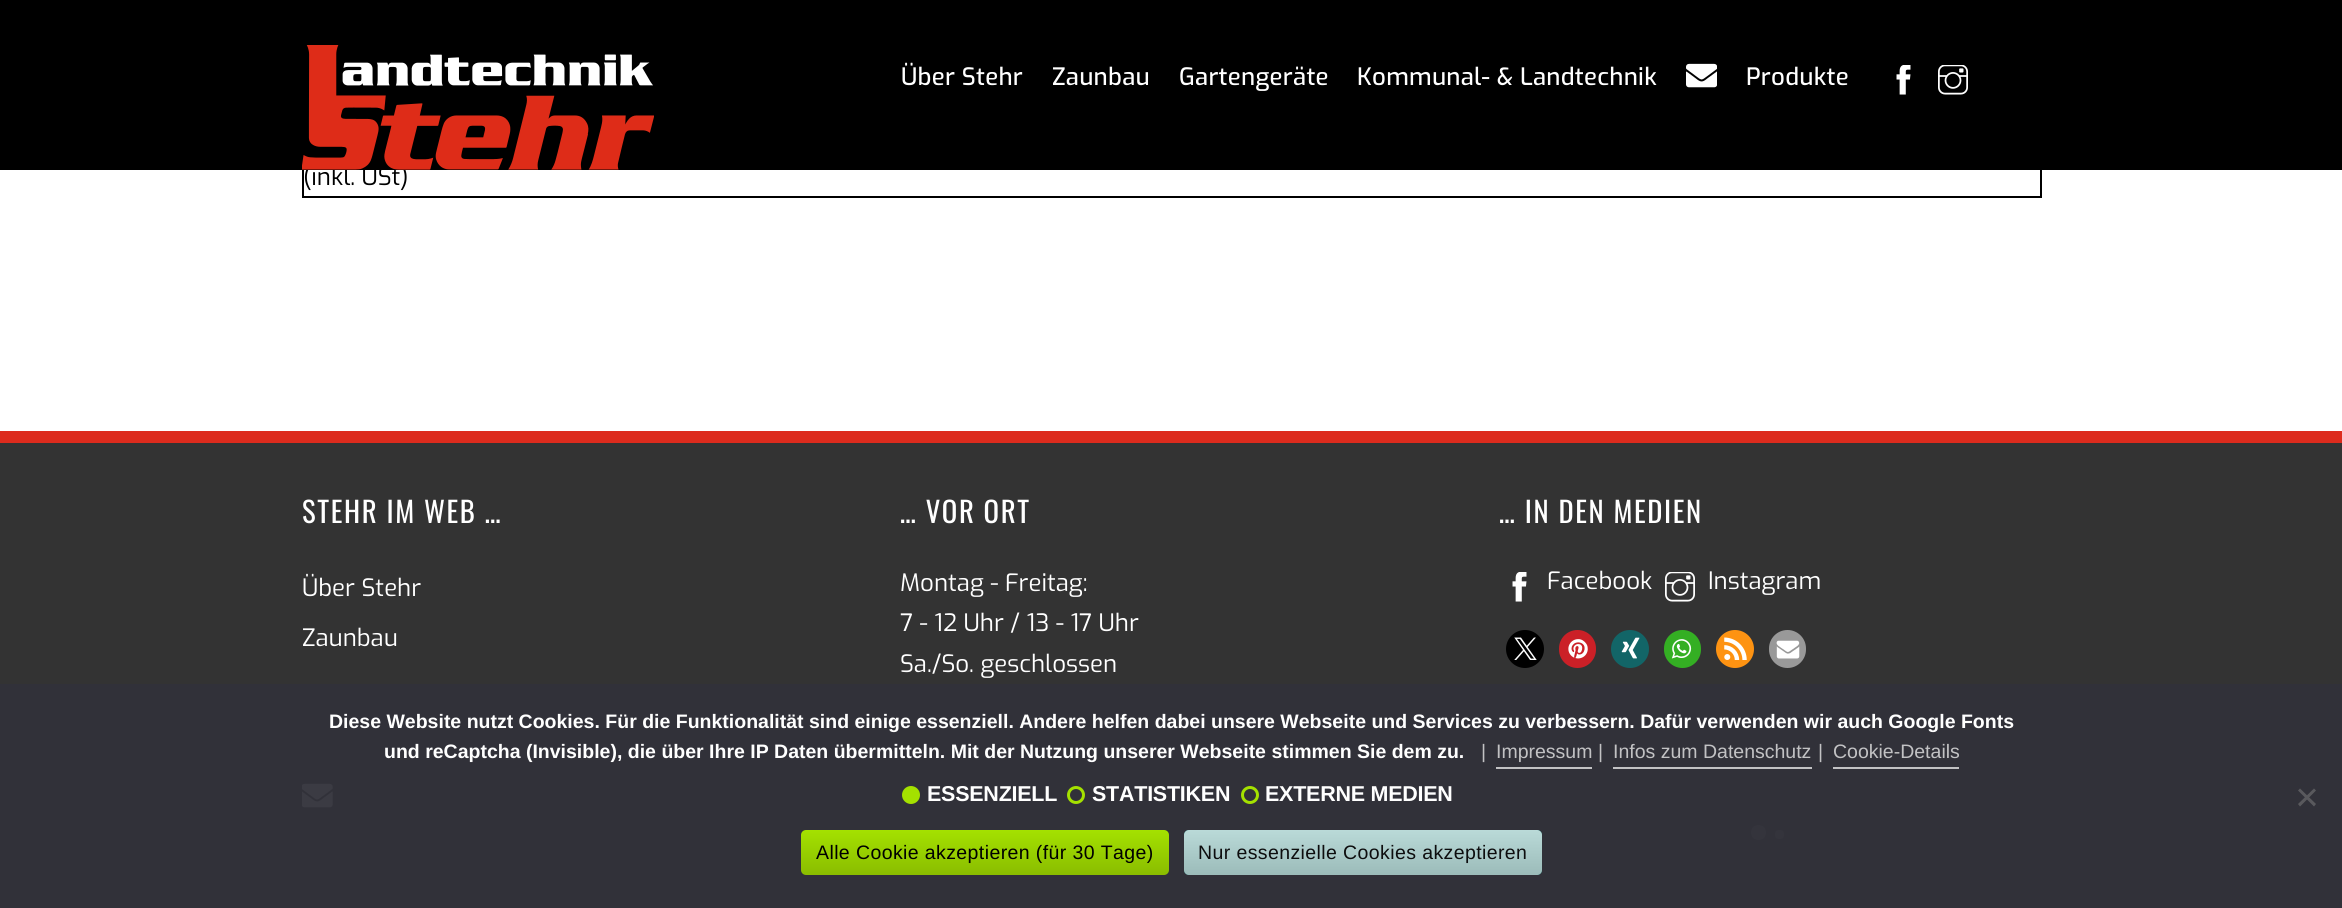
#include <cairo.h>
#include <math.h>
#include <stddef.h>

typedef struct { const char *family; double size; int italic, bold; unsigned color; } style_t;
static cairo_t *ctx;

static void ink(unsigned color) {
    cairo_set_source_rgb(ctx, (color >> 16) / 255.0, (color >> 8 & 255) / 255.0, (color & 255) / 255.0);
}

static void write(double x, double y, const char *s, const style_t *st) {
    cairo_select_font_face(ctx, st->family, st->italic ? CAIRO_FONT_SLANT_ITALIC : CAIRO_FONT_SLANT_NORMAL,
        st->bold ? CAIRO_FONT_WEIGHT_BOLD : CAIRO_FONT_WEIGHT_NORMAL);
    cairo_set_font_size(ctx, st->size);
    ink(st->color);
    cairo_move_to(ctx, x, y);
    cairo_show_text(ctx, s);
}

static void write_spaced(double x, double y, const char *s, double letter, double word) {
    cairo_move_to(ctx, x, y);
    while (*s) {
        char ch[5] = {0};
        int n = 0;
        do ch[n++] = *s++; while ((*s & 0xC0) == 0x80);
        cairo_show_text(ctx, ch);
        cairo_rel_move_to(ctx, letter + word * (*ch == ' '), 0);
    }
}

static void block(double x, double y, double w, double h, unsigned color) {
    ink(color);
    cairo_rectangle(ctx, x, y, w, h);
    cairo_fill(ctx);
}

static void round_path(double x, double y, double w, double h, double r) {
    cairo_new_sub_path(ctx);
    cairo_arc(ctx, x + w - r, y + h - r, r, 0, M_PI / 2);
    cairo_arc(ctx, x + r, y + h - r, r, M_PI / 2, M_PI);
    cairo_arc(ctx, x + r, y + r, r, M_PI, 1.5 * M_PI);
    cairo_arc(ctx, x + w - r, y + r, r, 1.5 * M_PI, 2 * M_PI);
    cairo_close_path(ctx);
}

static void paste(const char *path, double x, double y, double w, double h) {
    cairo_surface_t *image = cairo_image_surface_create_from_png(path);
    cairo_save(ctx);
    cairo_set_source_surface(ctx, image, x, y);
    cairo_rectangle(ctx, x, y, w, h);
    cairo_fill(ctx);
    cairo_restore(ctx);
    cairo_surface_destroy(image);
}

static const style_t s1 = {"Exo", 24, 0, 0, 0x000000};
static const style_t s2 = {"Exo", 24, 0, 0, 0xffffff};
static const style_t s3 = {"Liberation Sans", 19.5, 0, 1, 0xffffff};
static const style_t s4 = {"Liberation Sans", 19.5, 0, 0, 0xc2c2c4};

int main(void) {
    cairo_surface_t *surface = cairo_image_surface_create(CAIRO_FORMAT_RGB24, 2342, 908);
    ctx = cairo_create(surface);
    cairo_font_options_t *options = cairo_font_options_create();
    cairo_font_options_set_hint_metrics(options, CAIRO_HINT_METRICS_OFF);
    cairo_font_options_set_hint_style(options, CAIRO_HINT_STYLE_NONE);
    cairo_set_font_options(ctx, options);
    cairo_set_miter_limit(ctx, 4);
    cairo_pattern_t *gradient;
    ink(0xffffff);
    cairo_paint(ctx);
    cairo_rectangle(ctx, 303, -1, 1738, 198);
    ink(0x000000);
    cairo_stroke(ctx);
    block(0, 0, 2342, 170, 0x000000);
    write(303, 185, "(inkl. USt)", &s1);
    paste("pic1.png", 302, 45, 352, 125);
    cairo_select_font_face(ctx, "Exo Medium", CAIRO_FONT_SLANT_NORMAL, CAIRO_FONT_WEIGHT_NORMAL);
    ink(0xffffff);
    write_spaced(901, 85, "Über Stehr", 0.25, 0);
    write_spaced(1052, 85, "Zaunbau", 0.25, 0);
    write_spaced(1179, 85, "Gartengeräte", 0.25, 0);
    write_spaced(1357, 85, "Kommunal- & Landtechnik", 0.25, 0);
    paste("pic2.png", 1686, 63, 31, 25);
    write_spaced(1746, 85, "Produkte", 0.25, 0);
    paste("pic3.png", 1896, 65, 15, 30);
    paste("pic4.png", 1938, 65, 30, 30);
    block(0, 443, 2342, 465, 0x333333);
    block(0, 431, 2342, 12, 0xdd2b1d);
    cairo_select_font_face(ctx, "Oswald", CAIRO_FONT_SLANT_NORMAL, CAIRO_FONT_WEIGHT_NORMAL);
    cairo_set_font_size(ctx, 28.75);
    ink(0xffffff);
    write_spaced(302, 523, "STEHR IM WEB …", 1.6, 0);
    write(302, 596, "Über Stehr", &s2);
    write(302, 646, "Zaunbau", &s2);
    paste("pic5.png", 302, 783, 31, 25);
    cairo_select_font_face(ctx, "Oswald", CAIRO_FONT_SLANT_NORMAL, CAIRO_FONT_WEIGHT_NORMAL);
    cairo_set_font_size(ctx, 28.75);
    write_spaced(900, 523, "… VOR ORT", 1.6, 0);
    write(900, 591, "Montag - Freitag:", &s2);
    write(900, 631, "7 - 12 Uhr / 13 - 17 Uhr", &s2);
    write(900, 672, "Sa./So. geschlossen", &s2);
    cairo_select_font_face(ctx, "Oswald", CAIRO_FONT_SLANT_NORMAL, CAIRO_FONT_WEIGHT_NORMAL);
    cairo_set_font_size(ctx, 28.75);
    write_spaced(1499, 523, "… IN DEN MEDIEN", 1.6, 0);
    paste("pic6.png", 1512, 572, 15, 30);
    write(1547, 589, "Facebook", &s2);
    paste("pic7.png", 1665, 572, 30, 30);
    write(1708, 589, "Instagram", &s2);
    ink(0x000000);
    cairo_new_path(ctx);
    cairo_arc(ctx, 1525, 649, 19, 0, 2 * M_PI);
    cairo_fill(ctx);
    paste("pic8.png", 1514, 637, 23, 23);
    ink(0xcb2027);
    round_path(1559, 630, 37, 38, 18.5);
    cairo_fill(ctx);
    paste("pic9.png", 1568, 639, 20, 20);
    ink(0x126567);
    cairo_arc(ctx, 1630, 649, 19, 0, 2 * M_PI);
    cairo_fill(ctx);
    paste("pic10.png", 1621, 637, 19, 22);
    ink(0x34af23);
    round_path(1664, 630, 37, 38, 18.5);
    cairo_fill(ctx);
    paste("pic11.png", 1671, 639, 21, 20);
    ink(0xfe9312);
    cairo_arc(ctx, 1735, 649, 19, 0, 2 * M_PI);
    cairo_fill(ctx);
    paste("pic12.png", 1724, 637, 23, 23);
    ink(0x999999);
    round_path(1769, 630, 37, 38, 18.5);
    cairo_fill(ctx);
    paste("pic13.png", 1776, 640, 24, 19);
    ink(0x707070);
    cairo_arc(ctx, 1758.5, 832.5, 7.5, 0, 2 * M_PI);
    cairo_fill(ctx);
    cairo_arc(ctx, 1779.5, 834.5, 4.5, 0, 2 * M_PI);
    cairo_fill(ctx);
    cairo_set_source_rgba(ctx, 0.196, 0.196, 0.227, 0.95);
    cairo_rectangle(ctx, 0, 684, 2342, 224);
    cairo_fill(ctx);
    write(329, 728, "Diese Website nutzt Cookies. Für die Funktionalität sind einige essenziell. Andere helfen dabei unsere Webseite und Services zu verbessern. Dafür verwenden wir auch Google Fonts", &s3);
    write(384, 758, "und reCaptcha (Invisible), die über Ihre IP Daten übermitteln. Mit der Nutzung unserer Webseite stimmen Sie dem zu.", &s3);
    block(1496, 767, 96, 2, 0xc2c2c4);
    write(1481, 758, "|", &s4);
    write(1496, 758, "Impressum", &s4);
    block(1613, 767, 199, 2, 0xc2c2c4);
    write(1598, 758, "|", &s4);
    write(1613, 758, "Infos zum Datenschutz", &s4);
    block(1833, 767, 126, 2, 0xc2c2c4);
    write(1818, 758, "|", &s4);
    write(1833, 758, "Cookie-Details", &s4);
    ink(0xa4e100);
    cairo_new_path(ctx);
    cairo_arc(ctx, 911, 795, 7.5, 0, 2 * M_PI);
    cairo_fill_preserve(ctx);
    cairo_set_line_width(ctx, 3);
    cairo_stroke(ctx);
    cairo_select_font_face(ctx, "Liberation Sans", CAIRO_FONT_SLANT_NORMAL, CAIRO_FONT_WEIGHT_BOLD);
    cairo_set_font_size(ctx, 21.5);
    ink(0xffffff);
    write_spaced(927, 801, "ESSENZIELL", -0.25, 0);
    cairo_new_path(ctx);
    cairo_arc(ctx, 1076, 795, 7.5, 0, 2 * M_PI);
    ink(0xa4e100);
    cairo_stroke(ctx);
    ink(0xffffff);
    write_spaced(1092, 801, "STATISTIKEN", -0.25, 0);
    cairo_new_path(ctx);
    cairo_arc(ctx, 1250, 795, 7.5, 0, 2 * M_PI);
    ink(0xa4e100);
    cairo_stroke(ctx);
    ink(0xffffff);
    write_spaced(1265, 801, "EXTERNE MEDIEN", -0.25, 0);
    ink(0x59595d);
    cairo_new_path(ctx);
    cairo_move_to(ctx, 2314, 788.5);
    cairo_line_to(ctx, 2316, 790.5);
    cairo_line_to(ctx, 2300, 806.5);
    cairo_line_to(ctx, 2298, 804);
    cairo_close_path(ctx);
    cairo_fill(ctx);
    cairo_new_path(ctx);
    cairo_move_to(ctx, 2298, 790.5);
    cairo_line_to(ctx, 2300, 788.5);
    cairo_line_to(ctx, 2316, 804);
    cairo_line_to(ctx, 2314, 806.5);
    cairo_close_path(ctx);
    cairo_fill(ctx);
    gradient = cairo_pattern_create_linear(985, 830, 985, 875);
    cairo_pattern_add_color_stop_rgba(gradient, 0, 0.643, 0.882, 0, 1);
    cairo_pattern_add_color_stop_rgba(gradient, 1, 0.541, 0.741, 0, 1);
    cairo_set_source(ctx, gradient);
    cairo_pattern_destroy(gradient);
    round_path(801, 830, 368, 45, 5);
    cairo_fill(ctx);
    cairo_select_font_face(ctx, "Liberation Sans", CAIRO_FONT_SLANT_NORMAL, CAIRO_FONT_WEIGHT_NORMAL);
    cairo_set_font_size(ctx, 19.5);
    ink(0x000000);
    write_spaced(816, 859, "Alle Cookie akzeptieren (für 30 Tage)", 0.4, 0);
    cairo_set_source_rgba(ctx, 0, 0.663, 0.616, 0.75);
    round_path(1184, 830, 358, 45, 5);
    cairo_fill(ctx);
    gradient = cairo_pattern_create_linear(1363, 830, 1363, 875);
    cairo_pattern_add_color_stop_rgba(gradient, 0, 0.957, 0.957, 0.957, 0.75);
    cairo_pattern_add_color_stop_rgba(gradient, 1, 0.796, 0.796, 0.796, 0.75);
    cairo_set_source(ctx, gradient);
    cairo_pattern_destroy(gradient);
    round_path(1184, 830, 358, 45, 5);
    cairo_fill(ctx);
    ink(0x0d0d0e);
    write_spaced(1198, 859, "Nur essenzielle Cookies akzeptieren", 0.4, 0);
    cairo_surface_write_to_png(surface, "screenshot.png");
    cairo_font_options_destroy(options);
    cairo_destroy(ctx);
    cairo_surface_destroy(surface);
    return 0;
}
